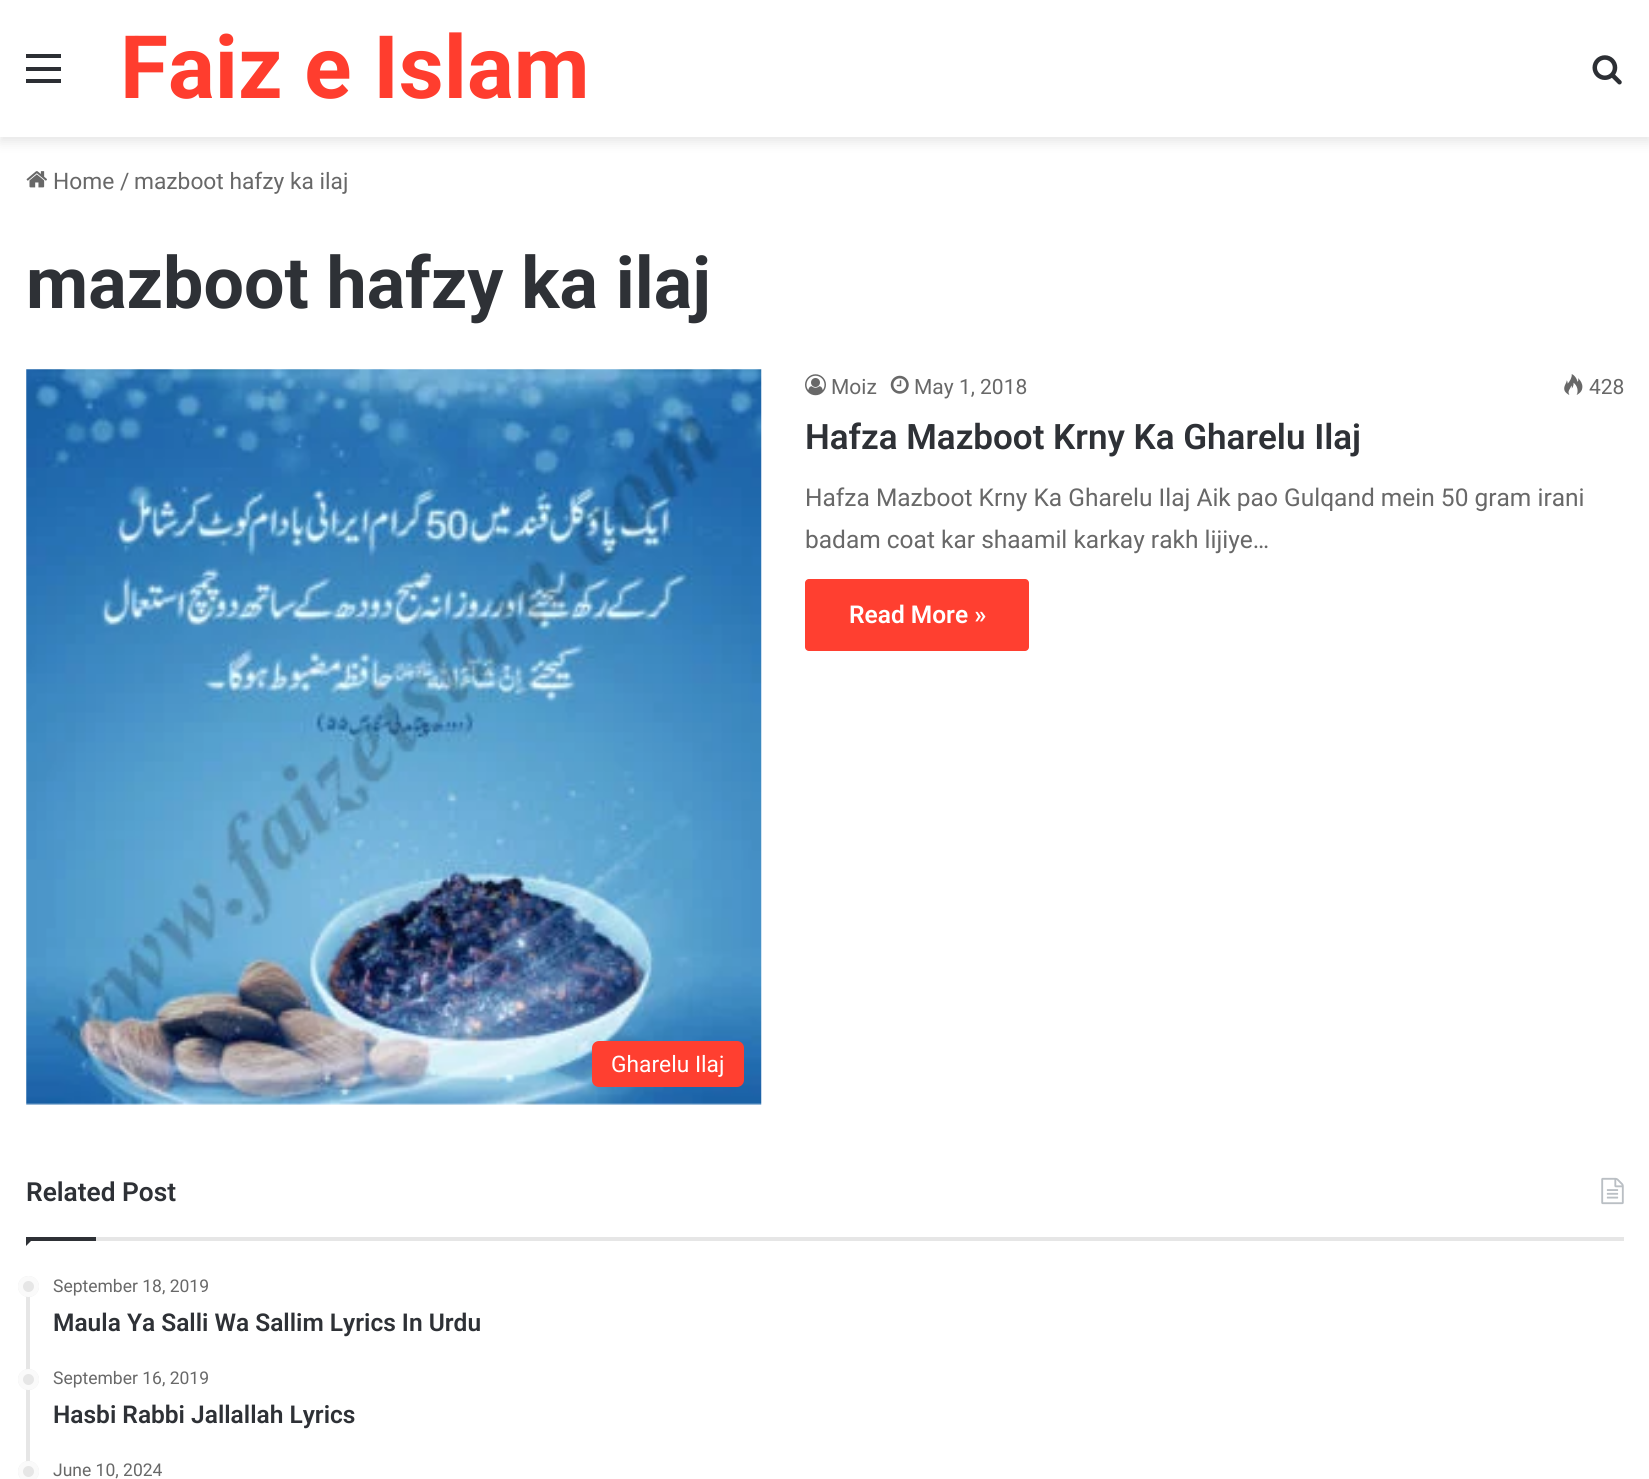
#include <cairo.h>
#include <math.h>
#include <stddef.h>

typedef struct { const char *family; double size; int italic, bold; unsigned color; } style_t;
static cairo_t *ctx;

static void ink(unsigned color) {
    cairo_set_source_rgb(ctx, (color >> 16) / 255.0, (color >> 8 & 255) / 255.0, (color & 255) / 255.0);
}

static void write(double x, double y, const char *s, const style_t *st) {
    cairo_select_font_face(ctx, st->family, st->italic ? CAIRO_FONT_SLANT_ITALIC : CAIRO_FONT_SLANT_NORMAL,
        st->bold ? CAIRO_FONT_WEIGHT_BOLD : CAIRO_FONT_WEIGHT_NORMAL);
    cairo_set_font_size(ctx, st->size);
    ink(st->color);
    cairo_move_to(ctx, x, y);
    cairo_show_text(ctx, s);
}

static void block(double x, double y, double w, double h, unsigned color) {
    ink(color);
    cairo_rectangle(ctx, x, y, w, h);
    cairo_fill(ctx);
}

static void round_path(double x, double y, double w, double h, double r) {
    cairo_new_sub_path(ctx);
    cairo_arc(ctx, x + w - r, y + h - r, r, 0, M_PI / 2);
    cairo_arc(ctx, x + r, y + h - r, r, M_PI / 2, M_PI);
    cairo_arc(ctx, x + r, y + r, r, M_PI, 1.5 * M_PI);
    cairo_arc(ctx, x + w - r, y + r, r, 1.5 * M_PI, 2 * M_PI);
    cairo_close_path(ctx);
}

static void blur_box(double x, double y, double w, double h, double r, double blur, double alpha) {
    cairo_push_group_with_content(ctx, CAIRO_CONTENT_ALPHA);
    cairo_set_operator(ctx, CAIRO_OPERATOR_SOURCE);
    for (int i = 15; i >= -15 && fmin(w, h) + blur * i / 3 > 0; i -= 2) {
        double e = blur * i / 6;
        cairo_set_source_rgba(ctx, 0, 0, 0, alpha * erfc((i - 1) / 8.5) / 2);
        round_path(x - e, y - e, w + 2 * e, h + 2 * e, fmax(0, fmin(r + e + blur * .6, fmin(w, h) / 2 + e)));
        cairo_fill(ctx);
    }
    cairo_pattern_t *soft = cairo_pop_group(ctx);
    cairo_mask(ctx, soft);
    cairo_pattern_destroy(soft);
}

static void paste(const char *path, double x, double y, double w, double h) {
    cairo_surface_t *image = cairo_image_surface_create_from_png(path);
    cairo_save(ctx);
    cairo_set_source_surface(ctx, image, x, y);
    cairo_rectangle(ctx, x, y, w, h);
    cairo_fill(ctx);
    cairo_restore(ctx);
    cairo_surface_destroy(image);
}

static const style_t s1 = {"Roboto", 87.5, 0, 1, 0xff3d2e};
static const style_t s2 = {"Roboto", 22.75, 0, 0, 0x686868};
static const style_t s3 = {"Roboto", 71.75, 0, 1, 0x2e3136};
static const style_t s4 = {"Roboto", 21, 0, 0, 0x686868};
static const style_t s5 = {"Roboto SemiBold", 35, 0, 0, 0x2e3136};
static const style_t s6 = {"Roboto", 24.5, 0, 0, 0x686868};
static const style_t s7 = {"Roboto SemiBold", 24.5, 0, 0, 0xffffff};
static const style_t s8 = {"Roboto", 22.75, 0, 0, 0xffffff};
static const style_t s9 = {"Roboto SemiBold", 26.25, 0, 0, 0x2e3136};
static const style_t s10 = {"Roboto", 17.5, 0, 0, 0x686868};
static const style_t s11 = {"Roboto SemiBold", 24.5, 0, 0, 0x2e3136};

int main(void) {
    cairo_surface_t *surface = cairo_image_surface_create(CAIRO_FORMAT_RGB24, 1649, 1479);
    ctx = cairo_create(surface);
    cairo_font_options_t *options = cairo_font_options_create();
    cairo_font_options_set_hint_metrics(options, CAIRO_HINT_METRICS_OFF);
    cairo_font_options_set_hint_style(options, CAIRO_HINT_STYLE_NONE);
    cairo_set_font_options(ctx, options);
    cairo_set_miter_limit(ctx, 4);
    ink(0xffffff);
    cairo_paint(ctx);
    ink(0x000000);
    blur_box(0, 5, 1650, 137, 0, 6, 0.1);
    block(0, 0, 1649, 137, 0xffffff);
    block(26, 67, 35, 4, 0x2c2f34);
    block(26, 54, 35, 4, 0x2c2f34);
    block(26, 79, 35, 4, 0x2c2f34);
    write(120, 98, "Faiz e Islam", &s1);
    paste("pic1.png", 1592, 55, 30, 30);
    paste("pic2.png", 26, 171, 21, 17);
    write(53, 189, "Home", &s2);
    write(120, 189, "/", &s2);
    write(134, 189, "mazboot hafzy ka ilaj", &s2);
    write(26, 308, "mazboot hafzy ka ilaj", &s3);
    paste("pic3.png", 805, 374, 21, 22);
    write(831, 394, "Moiz", &s4);
    paste("pic4.png", 890, 375, 19, 19);
    write(914, 394, "May 1, 2018", &s4);
    paste("pic5.png", 1564, 374, 19, 21);
    write(1589, 394, "428", &s4);
    write(805, 449, "Hafza Mazboot Krny Ka Gharelu Ilaj", &s5);
    write(805, 506, "Hafza Mazboot Krny Ka Gharelu Ilaj Aik pao Gulqand mein 50 gram irani", &s6);
    write(805, 548, "badam coat kar shaamil karkay rakh lijiye…", &s6);
    ink(0xff3f30);
    round_path(805, 579, 224, 72, 4);
    cairo_fill(ctx);
    write(849, 623, "Read More »", &s7);
    paste("pic6.png", 26, 369, 736, 736);
    ink(0xff3f30);
    round_path(592, 1041, 152, 46, 7);
    cairo_fill(ctx);
    write(611, 1072, "Gharelu Ilaj", &s8);
    block(96, 1237, 1528, 4, 0xe6e6e6);
    write(26, 1201, "Related Post", &s9);
    paste("pic7.png", 1601, 1177, 23, 28);
    cairo_new_path(ctx);
    cairo_move_to(ctx, 26, 1237);
    cairo_line_to(ctx, 35, 1237);
    cairo_line_to(ctx, 26, 1246);
    cairo_close_path(ctx);
    cairo_fill(ctx);
    block(26, 1237, 70, 4, 0x2e3136);
    block(26, 1276, 4, 186, 0xe6e6e6);
    cairo_arc(ctx, 28.5, 1286.5, 10.5, 0, 2 * M_PI);
    cairo_fill(ctx);
    cairo_arc(ctx, 28.5, 1286.5, 8, 0, 2 * M_PI);
    cairo_set_source_rgba(ctx, 1, 1, 1, 0.8);
    cairo_set_line_width(ctx, 5);
    cairo_stroke(ctx);
    write(53, 1292, "September 18, 2019", &s10);
    write(53, 1331, "Maula Ya Salli Wa Sallim Lyrics In Urdu", &s11);
    ink(0xe6e6e6);
    cairo_new_path(ctx);
    cairo_arc(ctx, 28.5, 1379.5, 10.5, 0, 2 * M_PI);
    cairo_fill(ctx);
    cairo_arc(ctx, 28.5, 1379.5, 8, 0, 2 * M_PI);
    cairo_set_source_rgba(ctx, 1, 1, 1, 0.8);
    cairo_stroke(ctx);
    write(53, 1384, "September 16, 2019", &s10);
    write(53, 1423, "Hasbi Rabbi Jallallah Lyrics", &s11);
    ink(0xe6e6e6);
    cairo_new_path(ctx);
    cairo_arc(ctx, 28.5, 1471.5, 10.5, 0, 2 * M_PI);
    cairo_fill(ctx);
    cairo_arc(ctx, 28.5, 1471.5, 8, 0, 2 * M_PI);
    cairo_set_source_rgba(ctx, 1, 1, 1, 0.8);
    cairo_stroke(ctx);
    write(53, 1476, "June 10, 2024", &s10);
    cairo_surface_write_to_png(surface, "screenshot.png");
    cairo_font_options_destroy(options);
    cairo_destroy(ctx);
    cairo_surface_destroy(surface);
    return 0;
}
